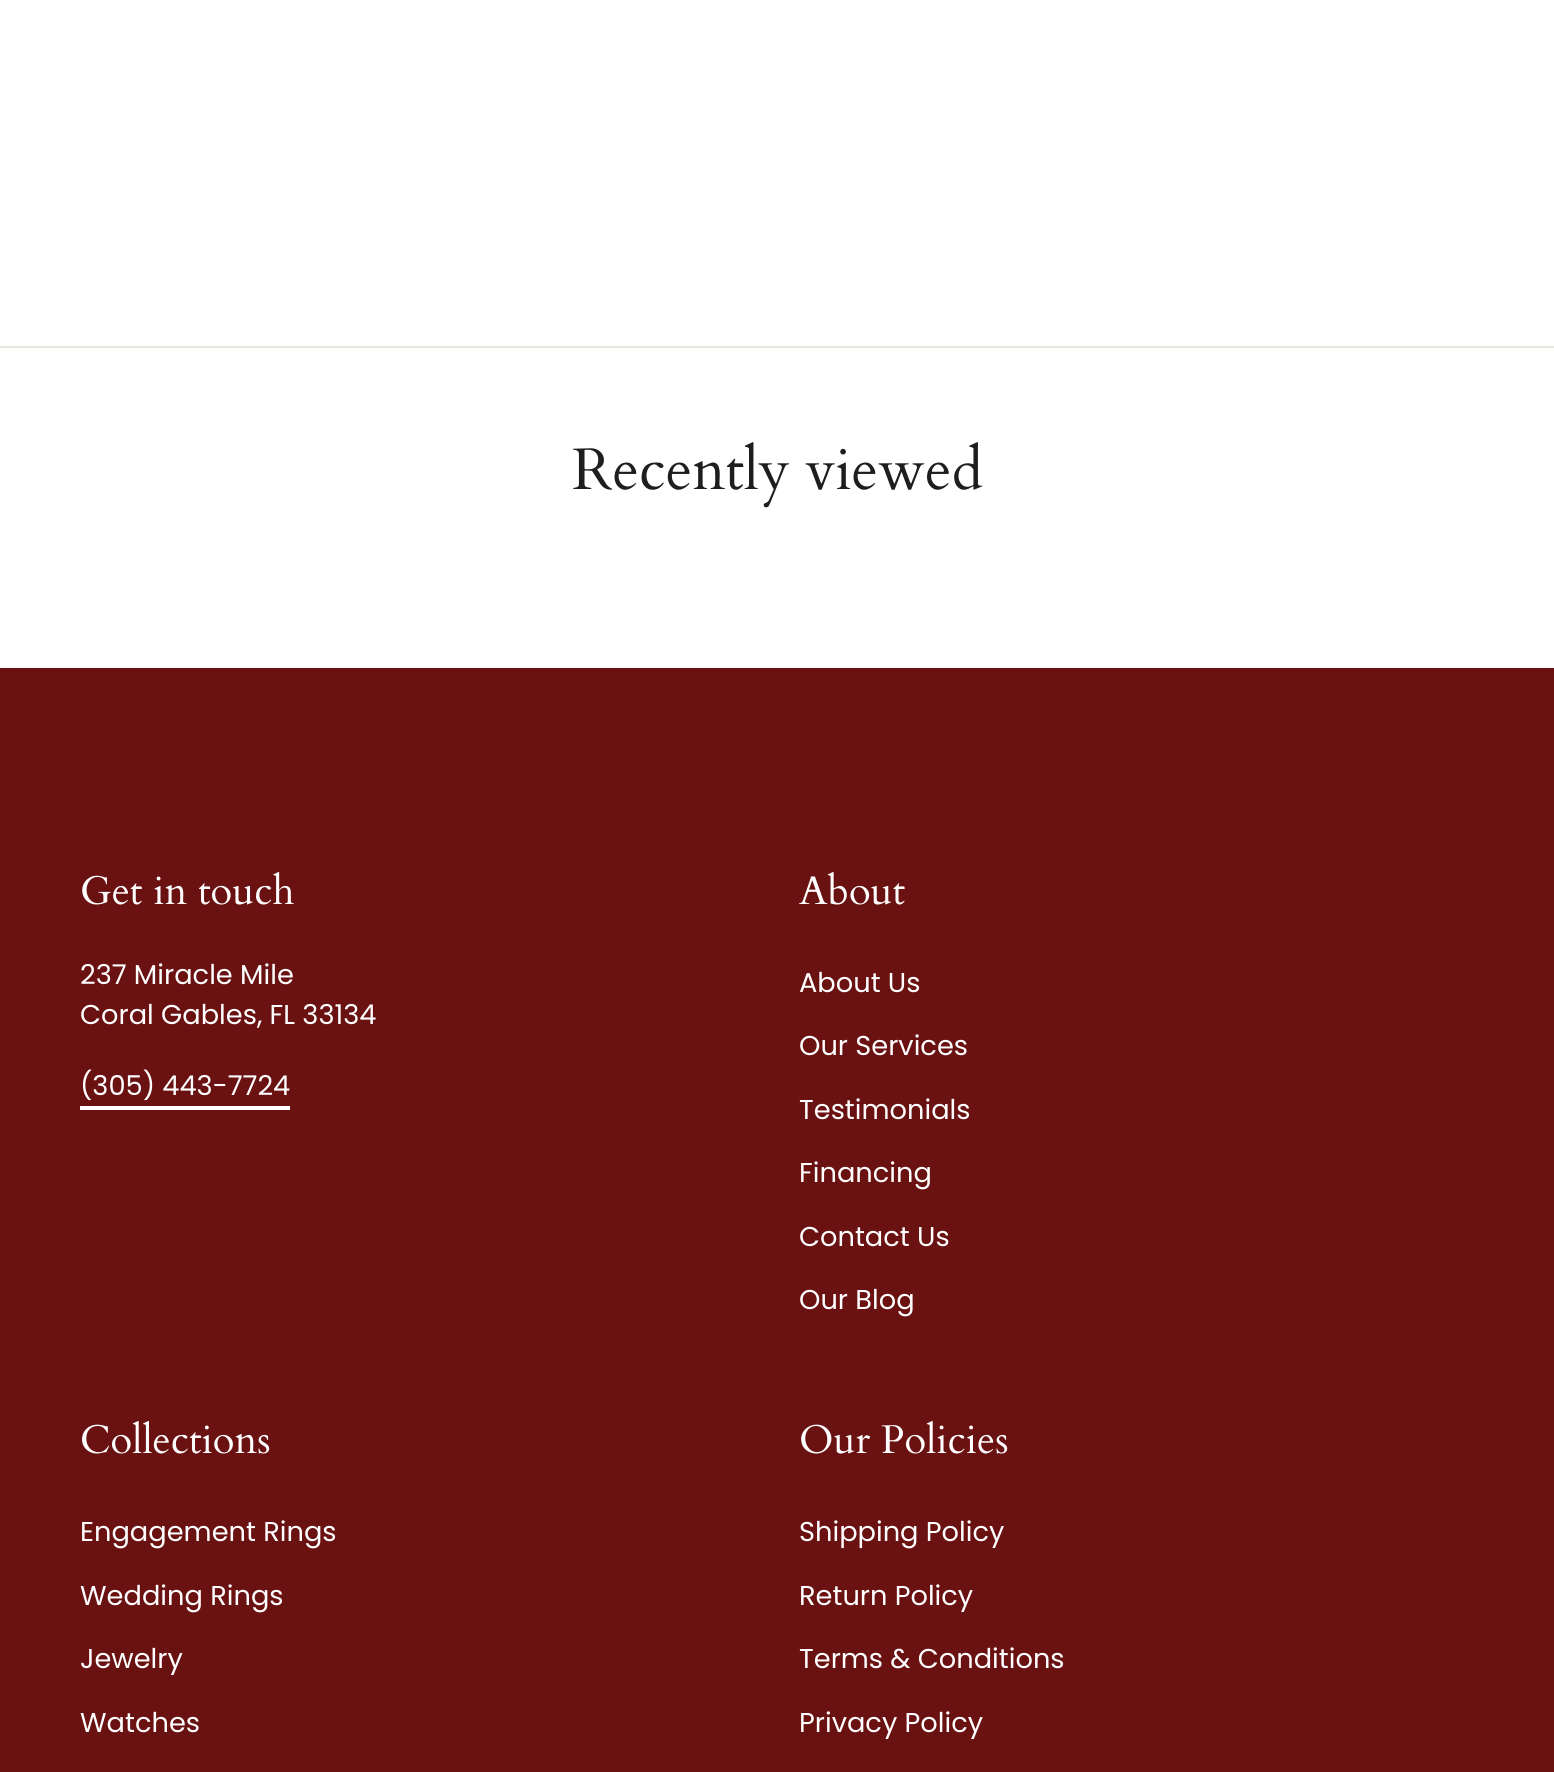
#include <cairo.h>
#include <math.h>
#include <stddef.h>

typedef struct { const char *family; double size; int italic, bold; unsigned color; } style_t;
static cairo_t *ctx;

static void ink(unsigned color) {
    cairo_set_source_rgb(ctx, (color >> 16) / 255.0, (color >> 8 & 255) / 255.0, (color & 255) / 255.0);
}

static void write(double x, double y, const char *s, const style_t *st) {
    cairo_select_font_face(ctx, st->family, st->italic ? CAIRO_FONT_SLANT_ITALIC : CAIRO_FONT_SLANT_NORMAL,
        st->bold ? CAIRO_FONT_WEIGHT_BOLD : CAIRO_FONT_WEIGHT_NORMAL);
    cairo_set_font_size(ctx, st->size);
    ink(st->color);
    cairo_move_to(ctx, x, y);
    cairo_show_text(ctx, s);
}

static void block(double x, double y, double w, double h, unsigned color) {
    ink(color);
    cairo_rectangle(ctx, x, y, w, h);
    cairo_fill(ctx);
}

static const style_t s1 = {"Cardo", 58.5, 0, 0, 0x1e1e1e};
static const style_t s2 = {"Cardo", 40, 0, 0, 0xffffff};
static const style_t s3 = {"Poppins", 27.25, 0, 0, 0xffffff};

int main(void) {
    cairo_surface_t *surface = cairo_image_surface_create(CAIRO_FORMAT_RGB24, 1554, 1772);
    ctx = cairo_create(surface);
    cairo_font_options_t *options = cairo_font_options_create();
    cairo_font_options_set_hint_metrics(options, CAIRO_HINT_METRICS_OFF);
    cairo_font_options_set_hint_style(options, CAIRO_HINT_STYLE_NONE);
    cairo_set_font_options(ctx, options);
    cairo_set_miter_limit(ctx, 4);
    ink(0xffffff);
    cairo_paint(ctx);
    block(0, 346, 1554, 2, 0xe8e8e1);
    write(572, 489, "Recently viewed", &s1);
    block(0, 668, 1554, 1104, 0x6a1112);
    write(80, 904, "Get in touch", &s2);
    write(80, 984, "237 Miracle Mile", &s3);
    write(80, 1024, "Coral Gables, FL 33134", &s3);
    write(80, 1095, "(305) 443-7724", &s3);
    block(80, 1106, 210, 4, 0xffffff);
    write(799, 904, "About", &s2);
    write(799, 992, "About Us", &s3);
    write(799, 1055, "Our Services", &s3);
    write(799, 1119, "Testimonials", &s3);
    write(799, 1182, "Financing", &s3);
    write(799, 1246, "Contact Us", &s3);
    write(799, 1309, "Our Blog", &s3);
    write(80, 1453, "Collections", &s2);
    write(80, 1541, "Engagement Rings", &s3);
    write(80, 1605, "Wedding Rings", &s3);
    write(80, 1668, "Jewelry", &s3);
    write(80, 1732, "Watches", &s3);
    write(799, 1453, "Our Policies", &s2);
    write(799, 1541, "Shipping Policy", &s3);
    write(799, 1605, "Return Policy", &s3);
    write(799, 1668, "Terms & Conditions", &s3);
    write(799, 1732, "Privacy Policy", &s3);
    cairo_surface_write_to_png(surface, "screenshot.png");
    cairo_font_options_destroy(options);
    cairo_destroy(ctx);
    cairo_surface_destroy(surface);
    return 0;
}
